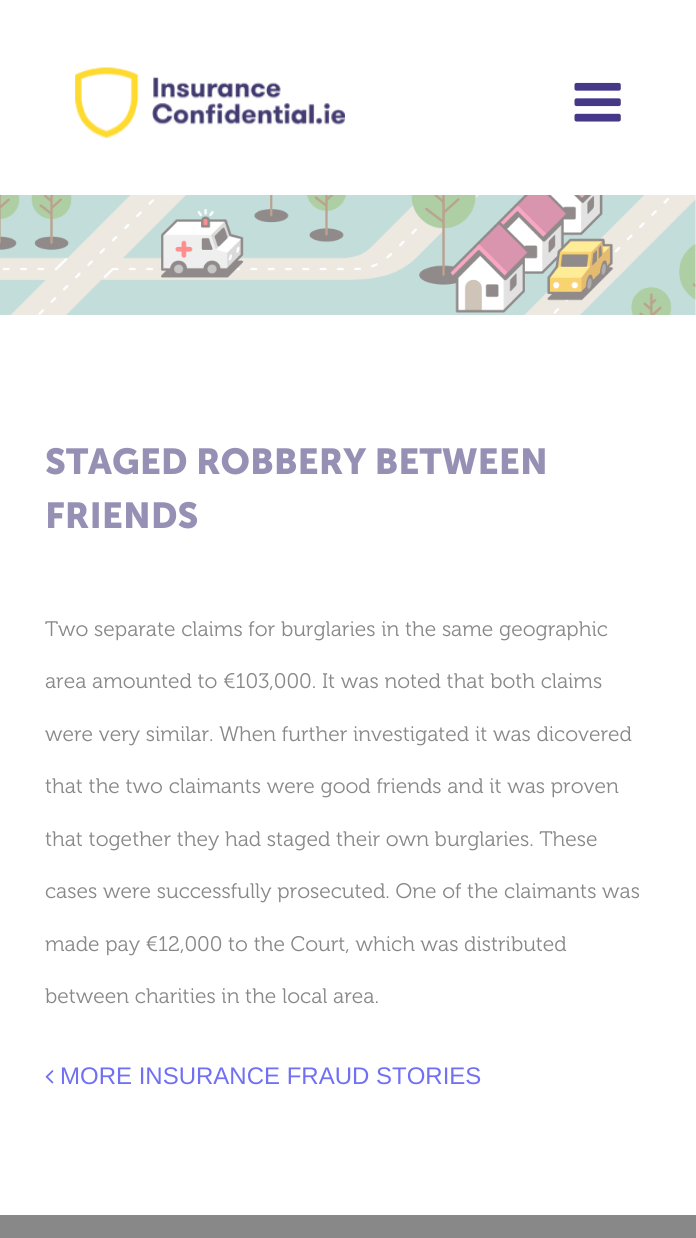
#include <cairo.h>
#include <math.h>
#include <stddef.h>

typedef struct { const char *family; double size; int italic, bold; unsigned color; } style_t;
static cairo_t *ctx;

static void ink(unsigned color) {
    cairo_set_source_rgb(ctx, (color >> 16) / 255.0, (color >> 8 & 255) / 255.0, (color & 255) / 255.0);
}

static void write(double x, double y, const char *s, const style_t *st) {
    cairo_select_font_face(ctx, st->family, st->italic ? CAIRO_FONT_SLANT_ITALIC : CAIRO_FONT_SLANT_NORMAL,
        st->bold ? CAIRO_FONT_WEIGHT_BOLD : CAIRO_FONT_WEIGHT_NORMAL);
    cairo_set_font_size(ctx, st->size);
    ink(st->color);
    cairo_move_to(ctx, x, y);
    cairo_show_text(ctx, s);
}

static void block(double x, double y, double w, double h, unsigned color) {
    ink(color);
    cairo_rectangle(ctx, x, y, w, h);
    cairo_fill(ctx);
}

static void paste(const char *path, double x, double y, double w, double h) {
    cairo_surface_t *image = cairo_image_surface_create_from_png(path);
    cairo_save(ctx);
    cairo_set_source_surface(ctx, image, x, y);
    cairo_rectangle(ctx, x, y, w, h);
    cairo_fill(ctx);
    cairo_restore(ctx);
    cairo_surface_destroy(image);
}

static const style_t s1 = {"Museo Sans", 36, 0, 1, 0x9790b5};
static const style_t s2 = {"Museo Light", 21, 0, 0, 0x888888};
static const style_t s3 = {"Liberation Sans", 24, 0, 0, 0x7070f5};

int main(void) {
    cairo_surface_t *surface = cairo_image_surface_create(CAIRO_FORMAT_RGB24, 696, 1238);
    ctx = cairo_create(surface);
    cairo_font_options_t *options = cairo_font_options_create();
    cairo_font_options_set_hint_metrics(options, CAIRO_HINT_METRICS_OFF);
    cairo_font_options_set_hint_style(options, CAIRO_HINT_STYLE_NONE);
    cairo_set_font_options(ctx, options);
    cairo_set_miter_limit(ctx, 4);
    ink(0xffffff);
    cairo_paint(ctx);
    paste("pic1.png", 75, 67, 270, 71);
    paste("pic2.png", 574, 82, 47, 40);
    paste("pic3.png", 0, 195, 696, 120);
    write(45, 474, "STAGED ROBBERY BETWEEN", &s1);
    write(45, 528, "FRIENDS", &s1);
    write(45, 636, "Two separate claims for burglaries in the same geographic", &s2);
    write(45, 688, "area amounted to €103,000. It was noted that both claims", &s2);
    write(45, 741, "were very similar. When further investigated it was dicovered", &s2);
    write(45, 793, "that the two claimants were good friends and it was proven", &s2);
    write(45, 846, "that together they had staged their own burglaries. These", &s2);
    write(45, 898, "cases were successfully prosecuted. One of the claimants was", &s2);
    write(45, 951, "made pay €12,000 to the Court, which was distributed", &s2);
    write(45, 1003, "between charities in the local area.", &s2);
    paste("pic4.png", 45, 1070, 9, 14);
    write(60, 1084, "MORE INSURANCE FRAUD STORIES", &s3);
    block(0, 1215, 696, 23, 0x878887);
    cairo_surface_write_to_png(surface, "screenshot.png");
    cairo_font_options_destroy(options);
    cairo_destroy(ctx);
    cairo_surface_destroy(surface);
    return 0;
}
